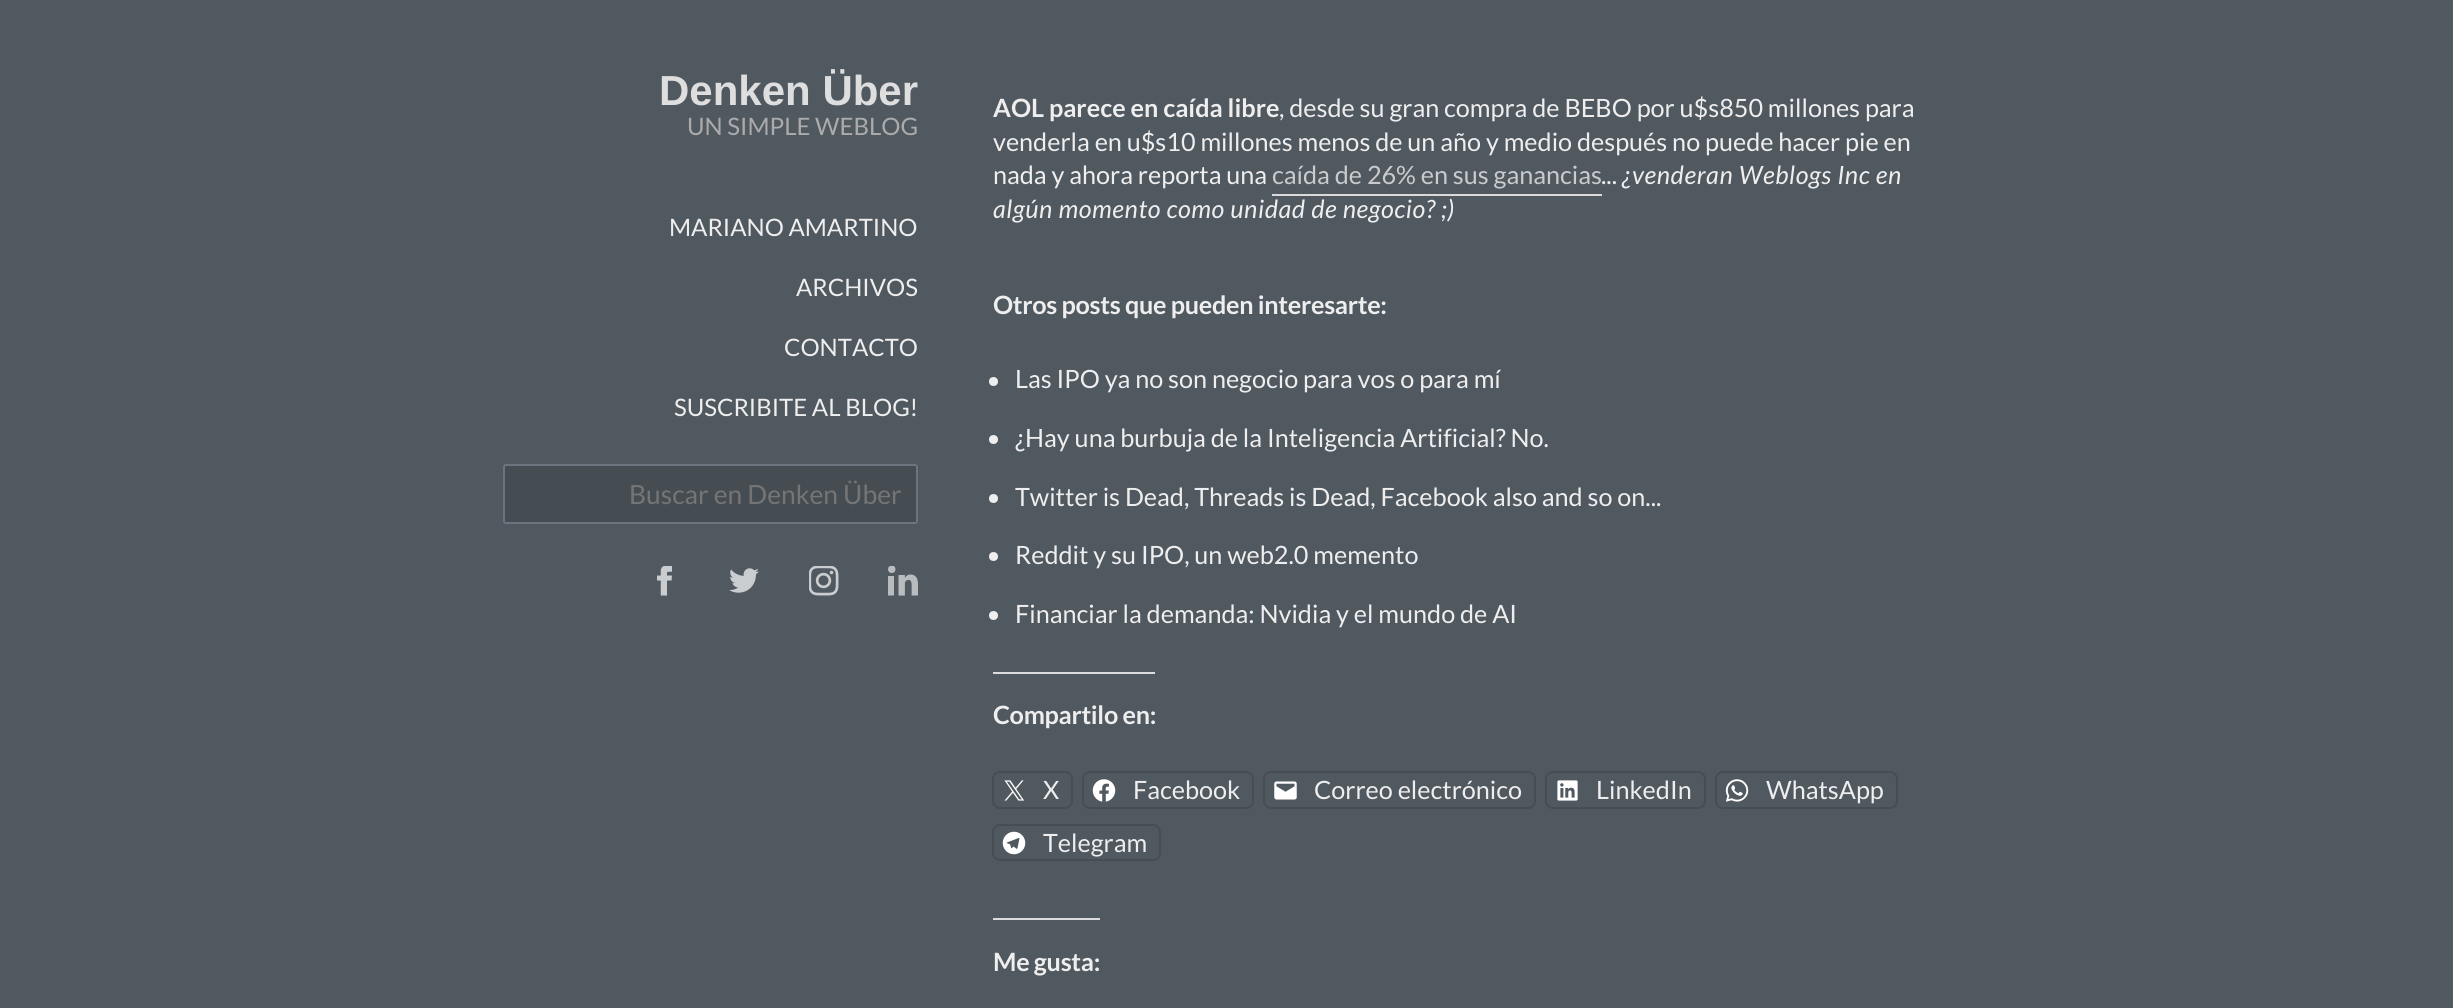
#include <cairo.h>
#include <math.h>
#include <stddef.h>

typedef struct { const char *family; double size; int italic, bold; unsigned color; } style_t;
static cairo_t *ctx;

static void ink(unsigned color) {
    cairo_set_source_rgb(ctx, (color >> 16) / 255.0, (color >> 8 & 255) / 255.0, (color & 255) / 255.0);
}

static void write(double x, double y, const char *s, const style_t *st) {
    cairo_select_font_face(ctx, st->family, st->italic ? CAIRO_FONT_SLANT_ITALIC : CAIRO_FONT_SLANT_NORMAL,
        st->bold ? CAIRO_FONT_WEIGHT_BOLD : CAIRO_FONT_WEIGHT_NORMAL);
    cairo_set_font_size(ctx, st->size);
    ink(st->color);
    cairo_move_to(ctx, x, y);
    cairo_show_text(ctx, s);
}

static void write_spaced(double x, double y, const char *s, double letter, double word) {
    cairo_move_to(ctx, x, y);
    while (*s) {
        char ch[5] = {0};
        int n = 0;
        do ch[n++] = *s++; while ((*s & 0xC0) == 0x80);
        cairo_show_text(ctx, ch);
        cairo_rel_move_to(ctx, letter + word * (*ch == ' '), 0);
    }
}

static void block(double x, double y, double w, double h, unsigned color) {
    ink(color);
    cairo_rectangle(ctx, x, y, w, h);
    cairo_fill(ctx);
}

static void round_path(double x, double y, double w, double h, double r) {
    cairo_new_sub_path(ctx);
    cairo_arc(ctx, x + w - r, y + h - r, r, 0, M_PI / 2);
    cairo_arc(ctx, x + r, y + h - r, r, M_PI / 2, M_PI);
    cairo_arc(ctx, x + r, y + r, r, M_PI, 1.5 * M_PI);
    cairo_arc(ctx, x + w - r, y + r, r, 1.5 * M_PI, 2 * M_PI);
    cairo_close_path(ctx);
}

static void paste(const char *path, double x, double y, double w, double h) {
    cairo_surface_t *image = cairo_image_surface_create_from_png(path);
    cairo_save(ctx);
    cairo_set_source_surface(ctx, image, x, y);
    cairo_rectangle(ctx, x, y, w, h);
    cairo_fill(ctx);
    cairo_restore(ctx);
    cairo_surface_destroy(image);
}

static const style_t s1 = {"Liberation Sans", 42, 0, 1, 0xdedede};
static const style_t s2 = {"Lato", 24, 0, 0, 0xababab};
static const style_t s3 = {"Lato", 24, 0, 0, 0xeeeeee};
static const style_t s4 = {"Lato", 26.4, 0, 0, 0x757575};
static const style_t s5 = {"Lato", 25.2, 0, 1, 0xeeeeee};
static const style_t s6 = {"Lato", 25.2, 0, 0, 0xeeeeee};
static const style_t s7 = {"Lato", 25.2, 0, 0, 0xcacbcc};

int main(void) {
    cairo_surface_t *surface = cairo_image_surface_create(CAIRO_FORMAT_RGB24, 2453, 1008);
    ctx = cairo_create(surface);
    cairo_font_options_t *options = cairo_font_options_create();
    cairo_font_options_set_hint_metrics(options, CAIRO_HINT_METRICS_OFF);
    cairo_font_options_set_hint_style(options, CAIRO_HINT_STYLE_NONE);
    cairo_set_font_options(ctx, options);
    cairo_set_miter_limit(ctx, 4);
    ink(0x505860);
    cairo_paint(ctx);
    write(659, 105, "Denken Über", &s1);
    write(687, 135, "UN SIMPLE WEBLOG", &s2);
    write(669, 236, "MARIANO AMARTINO", &s3);
    write(796, 296, "ARCHIVOS", &s3);
    write(784, 356, "CONTACTO", &s3);
    write(674, 416, "SUSCRIBITE AL BLOG!", &s3);
    ink(0x454c52);
    round_path(504, 465, 413, 58, 2);
    cairo_fill_preserve(ctx);
    ink(0x6c757e);
    cairo_stroke(ctx);
    write(629, 504, "Buscar en Denken Über", &s4);
    paste("pic1.png", 657, 566, 15, 30);
    paste("pic2.png", 729, 568, 30, 25);
    paste("pic3.png", 809, 566, 30, 30);
    paste("pic4.png", 888, 566, 30, 30);
    write(993, 117, "AOL parece en caída libre", &s5);
    write(1279, 117, ", desde su gran compra de BEBO por u$s850 millones para", &s6);
    write(993, 151, "venderla en u$s10 millones menos de un año y medio después no puede hacer pie en", &s6);
    write(993, 184, "nada y ahora reporta una", &s6);
    write(1272, 184, "caída de 26% en sus ganancias", &s7);
    block(1272, 194, 330, 2, 0xdadada);
    write(1601, 184, "...", &s6);
    cairo_select_font_face(ctx, "Lato", CAIRO_FONT_SLANT_ITALIC, CAIRO_FONT_WEIGHT_NORMAL);
    write_spaced(1622, 184, "¿venderan Weblogs Inc en", 0.6, 0);
    write_spaced(993, 218, "algún momento como unidad de negocio? ;)", 0.6, 0);
    cairo_select_font_face(ctx, "Lato", CAIRO_FONT_SLANT_NORMAL, CAIRO_FONT_WEIGHT_BOLD);
    write_spaced(993, 314, "Otros posts que pueden interesarte:", -0.3, 0);
    cairo_new_path(ctx);
    cairo_arc(ctx, 993.5, 381.5, 4.5, 0, 2 * M_PI);
    cairo_fill(ctx);
    write(1015, 388, "Las IPO ya no son negocio para vos o para mí", &s6);
    cairo_new_path(ctx);
    cairo_arc(ctx, 993.5, 439.5, 4.5, 0, 2 * M_PI);
    cairo_fill(ctx);
    write(1015, 447, "¿Hay una burbuja de la Inteligencia Artificial? No.", &s6);
    cairo_new_path(ctx);
    cairo_arc(ctx, 993.5, 498.5, 4.5, 0, 2 * M_PI);
    cairo_fill(ctx);
    write(1015, 506, "Twitter is Dead, Threads is Dead, Facebook also and so on...", &s6);
    cairo_new_path(ctx);
    cairo_arc(ctx, 993.5, 556.5, 4.5, 0, 2 * M_PI);
    cairo_fill(ctx);
    write(1015, 564, "Reddit y su IPO, un web2.0 memento", &s6);
    cairo_new_path(ctx);
    cairo_arc(ctx, 993.5, 615.5, 4.5, 0, 2 * M_PI);
    cairo_fill(ctx);
    write(1015, 623, "Financiar la demanda: Nvidia y el mundo de AI", &s6);
    block(993, 672, 162, 2, 0xdcdcde);
    cairo_select_font_face(ctx, "Lato", CAIRO_FONT_SLANT_NORMAL, CAIRO_FONT_WEIGHT_BOLD);
    ink(0xeeeeee);
    write_spaced(993, 724, "Compartilo en:", -0.3, 0);
    round_path(993, 772, 79, 36, 7);
    ink(0x464d54);
    cairo_stroke(ctx);
    paste("pic5.png", 1004, 780, 21, 21);
    write(1043, 799, "X", &s6);
    round_path(1083, 772, 170, 36, 7);
    ink(0x464d54);
    cairo_stroke(ctx);
    paste("pic6.png", 1092, 779, 24, 23);
    write(1133, 799, "Facebook", &s6);
    round_path(1264, 772, 271, 36, 7);
    ink(0x464d54);
    cairo_stroke(ctx);
    paste("pic7.png", 1274, 781, 23, 19);
    write(1314, 799, "Correo electrónico", &s6);
    round_path(1546, 772, 159, 36, 7);
    ink(0x464d54);
    cairo_stroke(ctx);
    paste("pic8.png", 1557, 780, 21, 21);
    write(1596, 799, "LinkedIn", &s6);
    round_path(1716, 772, 181, 36, 7);
    ink(0x464d54);
    cairo_stroke(ctx);
    paste("pic9.png", 1725, 779, 24, 23);
    write(1766, 799, "WhatsApp", &s6);
    round_path(993, 825, 167, 35, 7);
    ink(0x464d54);
    cairo_stroke(ctx);
    paste("pic10.png", 1002, 831, 24, 24);
    write(1043, 852, "Telegram", &s6);
    block(993, 918, 107, 2, 0xdcdcde);
    cairo_select_font_face(ctx, "Lato", CAIRO_FONT_SLANT_NORMAL, CAIRO_FONT_WEIGHT_BOLD);
    ink(0xeeeeee);
    write_spaced(993, 971, "Me gusta:", -0.3, 0);
    cairo_surface_write_to_png(surface, "screenshot.png");
    cairo_font_options_destroy(options);
    cairo_destroy(ctx);
    cairo_surface_destroy(surface);
    return 0;
}
